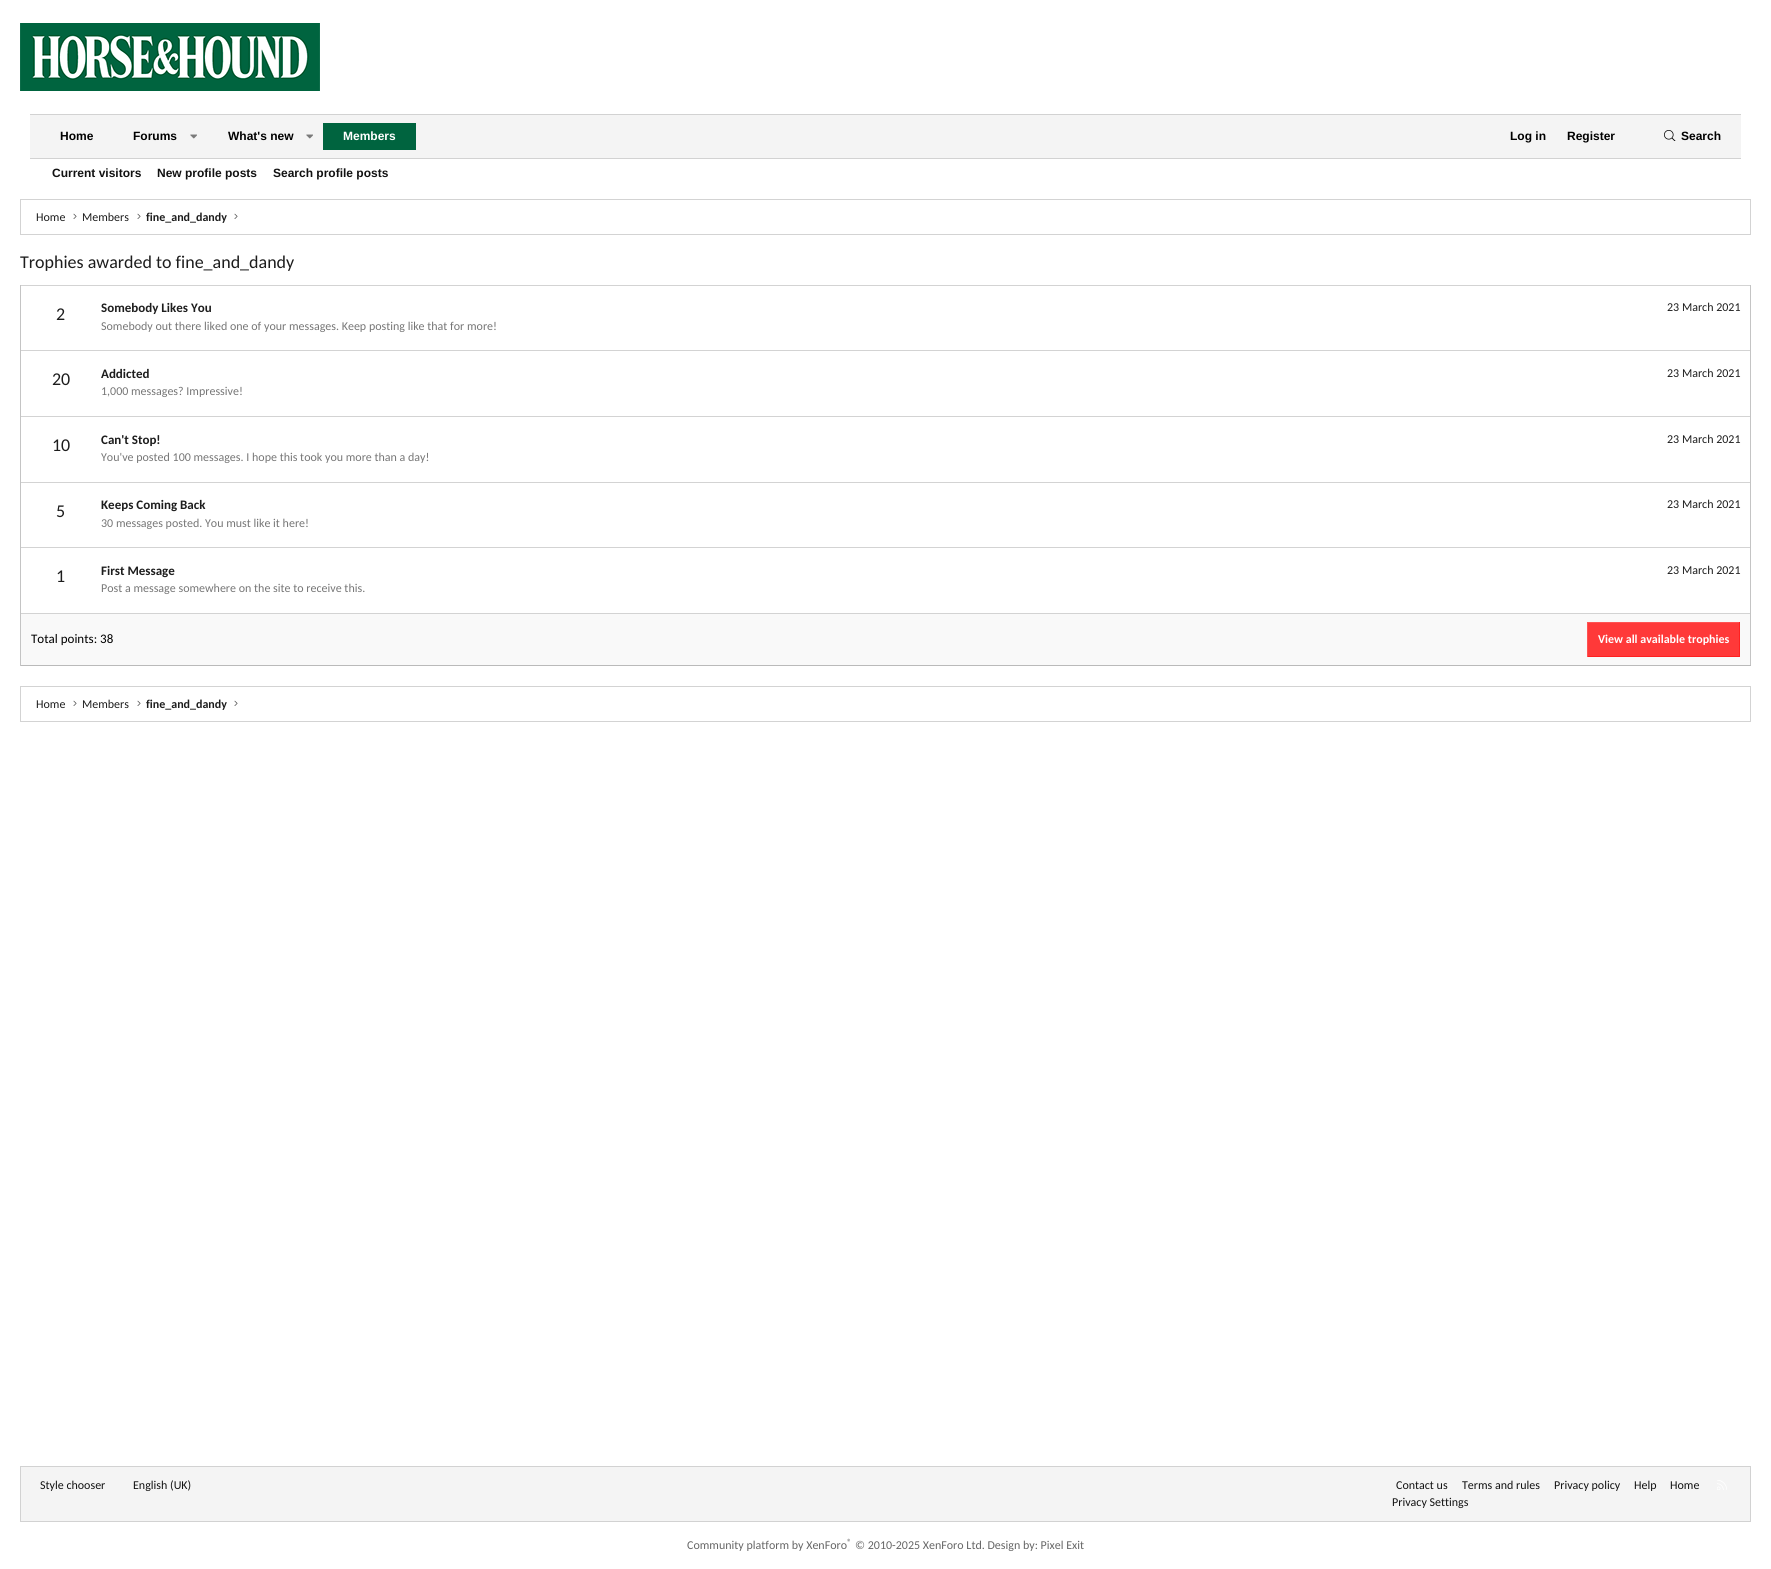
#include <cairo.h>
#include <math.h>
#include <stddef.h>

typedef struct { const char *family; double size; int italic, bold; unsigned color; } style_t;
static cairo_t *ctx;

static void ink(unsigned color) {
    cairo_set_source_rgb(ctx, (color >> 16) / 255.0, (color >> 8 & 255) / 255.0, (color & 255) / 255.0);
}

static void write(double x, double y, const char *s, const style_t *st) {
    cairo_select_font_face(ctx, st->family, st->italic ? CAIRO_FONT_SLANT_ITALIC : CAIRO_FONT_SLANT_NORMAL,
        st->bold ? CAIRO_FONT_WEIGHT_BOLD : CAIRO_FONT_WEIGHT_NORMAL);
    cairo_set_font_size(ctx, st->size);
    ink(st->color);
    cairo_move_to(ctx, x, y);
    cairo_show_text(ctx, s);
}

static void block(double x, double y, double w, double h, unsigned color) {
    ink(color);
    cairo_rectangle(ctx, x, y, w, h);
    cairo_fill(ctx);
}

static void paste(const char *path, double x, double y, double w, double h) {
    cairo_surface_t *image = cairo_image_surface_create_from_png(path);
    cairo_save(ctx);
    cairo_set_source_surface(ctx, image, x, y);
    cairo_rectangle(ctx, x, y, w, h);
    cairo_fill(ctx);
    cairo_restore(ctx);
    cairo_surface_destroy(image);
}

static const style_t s1 = {"Liberation Sans", 12, 0, 1, 0x000000};
static const style_t s2 = {"Liberation Sans", 12, 0, 1, 0xffffff};
static const style_t s3 = {"Liberation Sans", 12, 0, 1, 0x121212};
static const style_t s4 = {"Carlito", 12, 0, 0, 0x1d1d1d};
static const style_t s5 = {"Carlito", 12, 0, 1, 0x1d1d1d};
static const style_t s6 = {"Carlito", 18, 0, 0, 0x1d1d1d};
static const style_t s7 = {"Carlito", 13, 0, 1, 0x1d1d1d};
static const style_t s8 = {"Carlito", 12, 0, 0, 0x767676};
static const style_t s9 = {"Carlito", 13, 0, 0, 0x000000};
static const style_t s10 = {"Carlito", 12, 0, 1, 0xffffff};
static const style_t s11 = {"Carlito", 12, 0, 0, 0x121212};
static const style_t s12 = {"Carlito", 12, 0, 0, 0x666666};
static const style_t s13 = {"Carlito", 9, 0, 0, 0x666666};

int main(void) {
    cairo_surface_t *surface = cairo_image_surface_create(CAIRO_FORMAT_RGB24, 1771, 1569);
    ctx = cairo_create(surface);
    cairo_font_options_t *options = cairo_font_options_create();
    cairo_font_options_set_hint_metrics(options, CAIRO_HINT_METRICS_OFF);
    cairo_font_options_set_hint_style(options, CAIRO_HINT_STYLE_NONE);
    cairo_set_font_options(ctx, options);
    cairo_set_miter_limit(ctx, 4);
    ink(0xffffff);
    cairo_paint(ctx);
    paste("pic1.png", 20, 23, 300, 68);
    block(30, 115, 1711, 43, 0xf4f4f4);
    block(30, 114, 1711, 1, 0xd2d2d2);
    block(30, 158, 1711, 1, 0xd2d2d2);
    write(60, 140, "Home", &s1);
    write(133, 140, "Forums", &s1);
    paste("pic2.png", 190, 134, 7, 5);
    write(228, 140, "What's new", &s1);
    paste("pic2.png", 306, 134, 7, 5);
    block(323, 123, 93, 27, 0x00643f);
    write(343, 140, "Members", &s2);
    write(1510, 140, "Log in", &s1);
    write(1567, 140, "Register", &s1);
    paste("pic3.png", 1664, 130, 12, 11);
    write(1681, 140, "Search", &s1);
    write(52, 177, "Current visitors", &s3);
    write(157, 177, "New profile posts", &s3);
    write(273, 177, "Search profile posts", &s3);
    cairo_rectangle(ctx, 20.5, 199.5, 1730, 35);
    ink(0xd3d3d3);
    cairo_set_line_width(ctx, 1);
    cairo_stroke(ctx);
    write(36, 221, "Home", &s4);
    paste("pic4.png", 73, 213, 4, 6);
    write(82, 221, "Members", &s4);
    paste("pic4.png", 137, 213, 4, 6);
    write(146, 221, "fine_and_dandy", &s5);
    paste("pic4.png", 234, 213, 4, 6);
    write(20, 268, "Trophies awarded to fine_and_dandy", &s6);
    block(20, 285, 1731, 1, 0xd3d3d3);
    block(1750, 285, 1, 381, 0xc4c4c4);
    block(20, 665, 1731, 1, 0xbababa);
    block(20, 285, 1, 381, 0xc4c4c4);
    write(56, 320, "2", &s6);
    write(101, 312, "Somebody Likes You", &s7);
    write(1667, 311, "23 March 2021", &s4);
    write(101, 330, "Somebody out there liked one of your messages. Keep posting like that for more!", &s8);
    block(21, 350, 1729, 1, 0xd3d3d3);
    write(52, 385, "20", &s6);
    write(101, 378, "Addicted", &s7);
    write(1667, 377, "23 March 2021", &s4);
    write(101, 395, "1,000 messages? Impressive!", &s8);
    block(21, 416, 1729, 1, 0xd3d3d3);
    write(52, 451, "10", &s6);
    write(101, 444, "Can't Stop!", &s7);
    write(1667, 443, "23 March 2021", &s4);
    write(101, 461, "You've posted 100 messages. I hope this took you more than a day!", &s8);
    block(21, 482, 1729, 1, 0xd3d3d3);
    write(56, 517, "5", &s6);
    write(101, 509, "Keeps Coming Back", &s7);
    write(1667, 508, "23 March 2021", &s4);
    write(101, 527, "30 messages posted. You must like it here!", &s8);
    block(21, 547, 1729, 1, 0xd3d3d3);
    write(56, 582, "1", &s6);
    write(101, 575, "First Message", &s7);
    write(1667, 574, "23 March 2021", &s4);
    write(101, 592, "Post a message somewhere on the site to receive this.", &s8);
    block(21, 614, 1729, 51, 0xf9f9f9);
    block(21, 613, 1729, 1, 0xd3d3d3);
    write(31, 643, "Total points: 38", &s9);
    block(1588, 623, 151, 33, 0xff3939);
    block(1587, 622, 153, 1, 0xff5353);
    block(1739, 622, 1, 35, 0xff2020);
    block(1587, 656, 153, 1, 0xff2020);
    block(1587, 622, 1, 35, 0xff5353);
    write(1598, 643, "View all available trophies", &s10);
    cairo_rectangle(ctx, 20.5, 686.5, 1730, 35);
    ink(0xd3d3d3);
    cairo_stroke(ctx);
    write(36, 708, "Home", &s4);
    paste("pic4.png", 73, 700, 4, 6);
    write(82, 708, "Members", &s4);
    paste("pic4.png", 137, 700, 4, 6);
    write(146, 708, "fine_and_dandy", &s5);
    paste("pic4.png", 234, 700, 4, 6);
    ink(0xf4f4f4);
    cairo_rectangle(ctx, 20.5, 1466.5, 1730, 55);
    cairo_fill_preserve(ctx);
    ink(0xd2d2d2);
    cairo_stroke(ctx);
    write(40, 1489, "Style chooser", &s11);
    write(133, 1489, "English (UK)", &s11);
    write(1396, 1489, "Contact us", &s11);
    write(1462, 1489, "Terms and rules", &s11);
    write(1554, 1489, "Privacy policy", &s11);
    write(1634, 1489, "Help", &s11);
    write(1670, 1489, "Home", &s11);
    paste("pic5.png", 1717, 1480, 10, 10);
    write(1392, 1506, "Privacy Settings", &s11);
    write(687, 1549, "Community platform by XenForo", &s12);
    write(847, 1545, "®", &s13);
    write(855, 1549, "© 2010-2025 XenForo Ltd. Design by: Pixel Exit", &s12);
    cairo_surface_write_to_png(surface, "screenshot.png");
    cairo_font_options_destroy(options);
    cairo_destroy(ctx);
    cairo_surface_destroy(surface);
    return 0;
}
